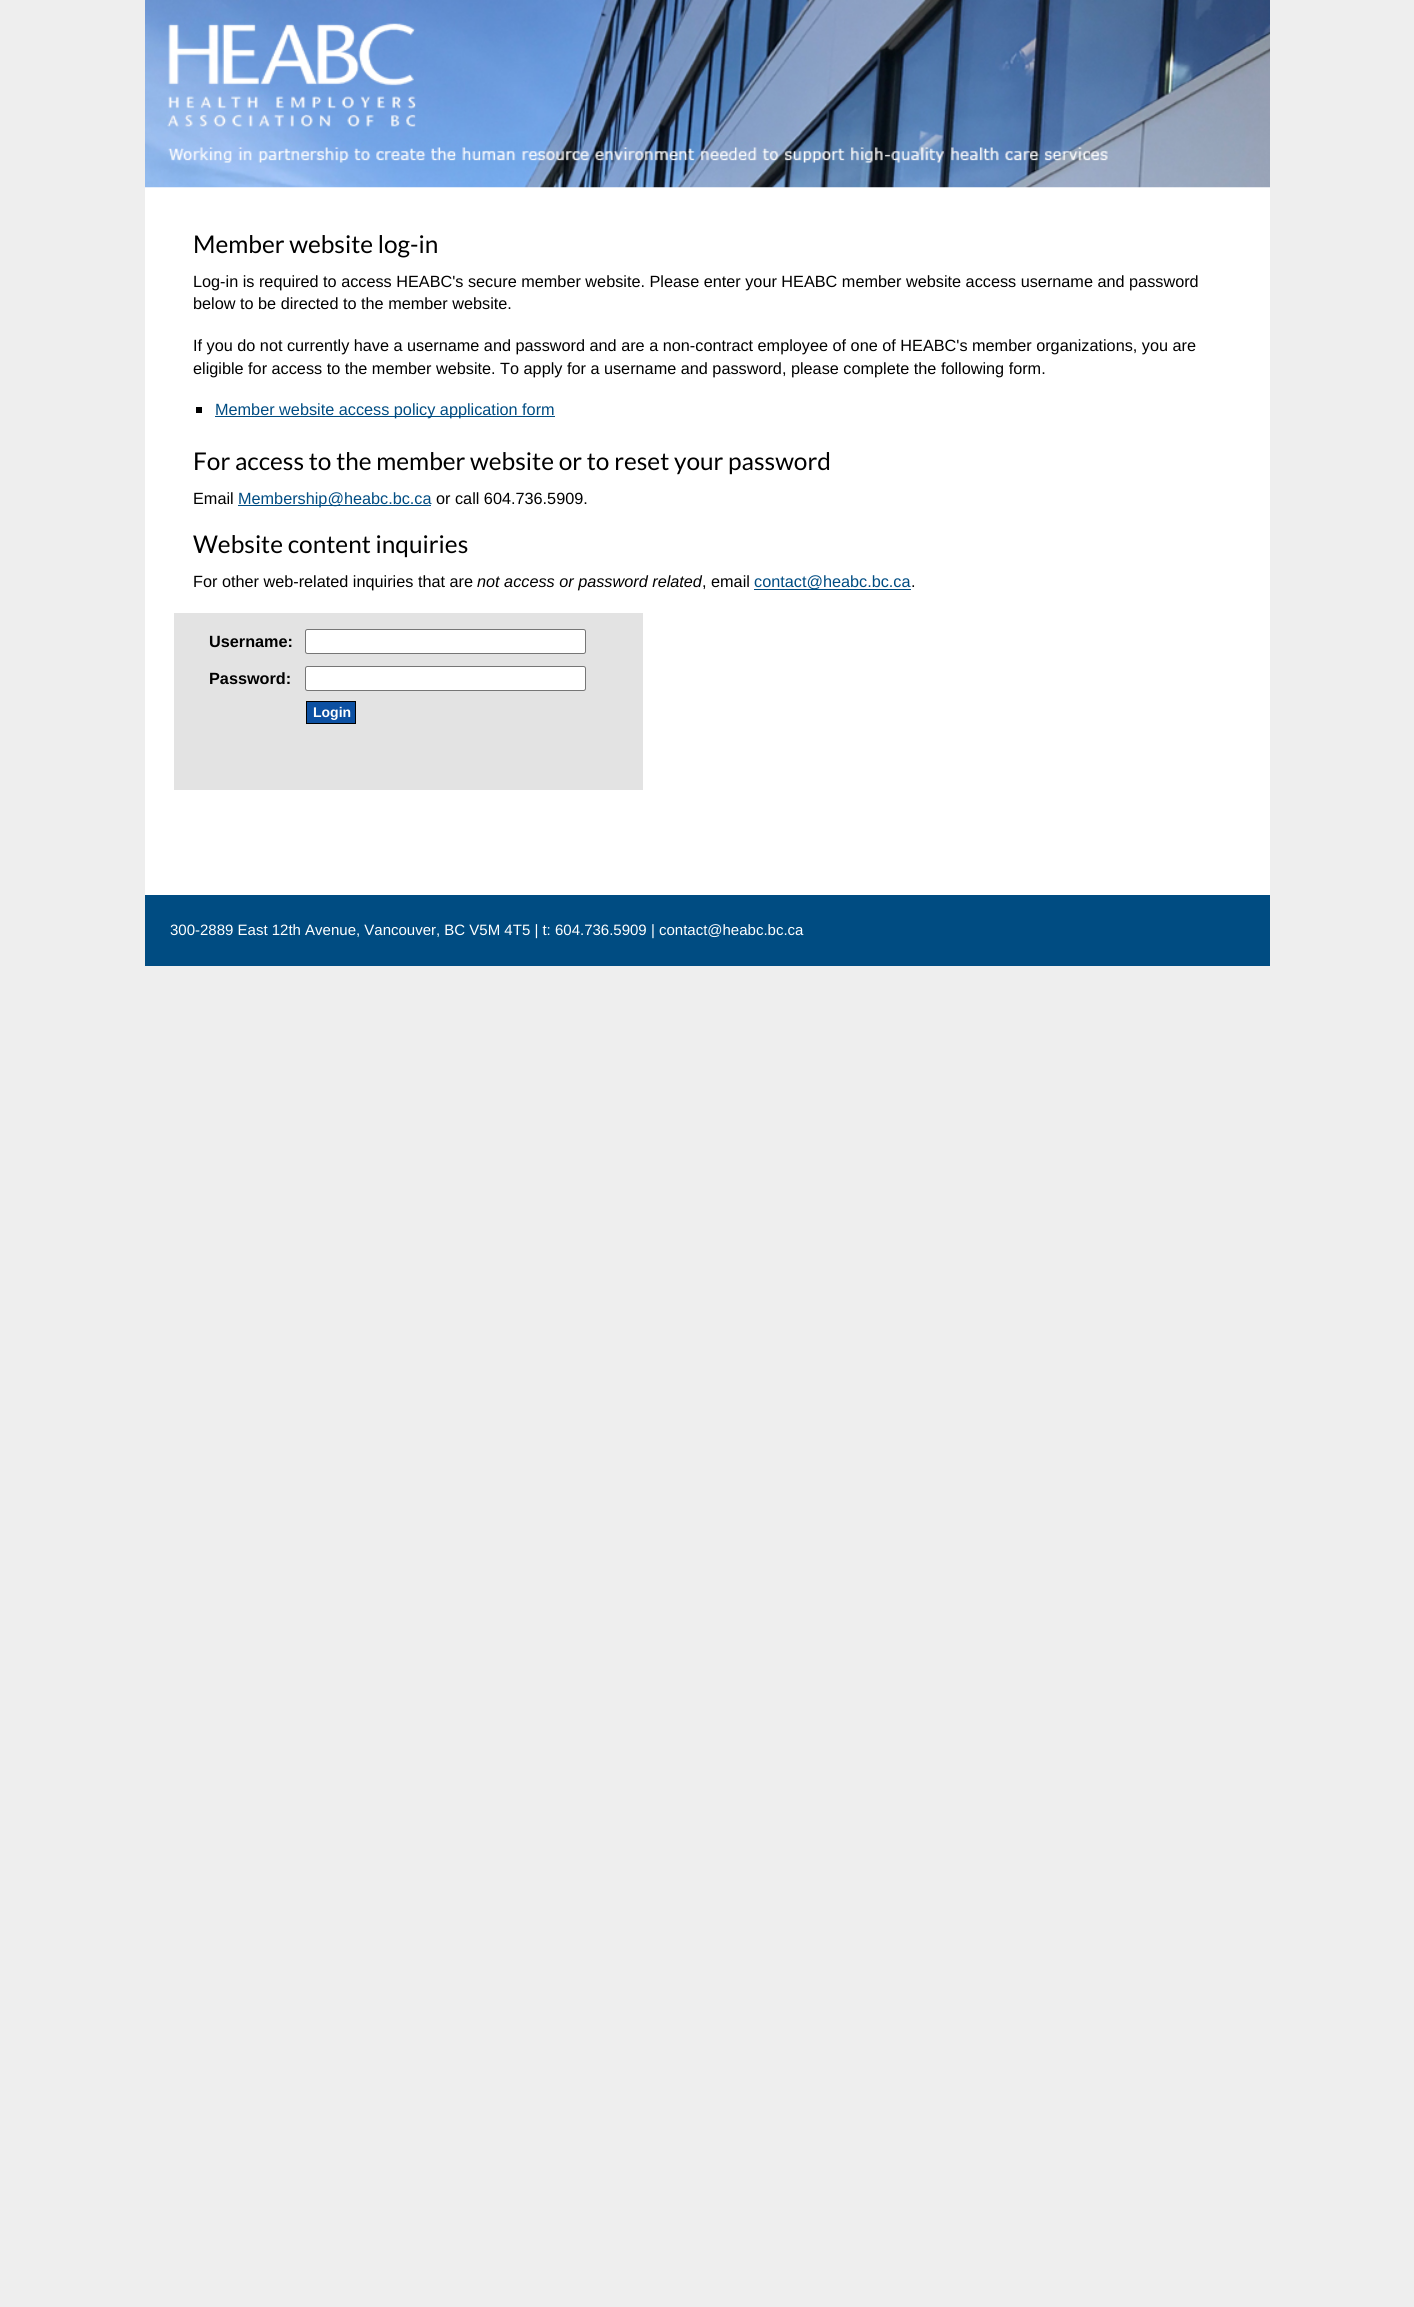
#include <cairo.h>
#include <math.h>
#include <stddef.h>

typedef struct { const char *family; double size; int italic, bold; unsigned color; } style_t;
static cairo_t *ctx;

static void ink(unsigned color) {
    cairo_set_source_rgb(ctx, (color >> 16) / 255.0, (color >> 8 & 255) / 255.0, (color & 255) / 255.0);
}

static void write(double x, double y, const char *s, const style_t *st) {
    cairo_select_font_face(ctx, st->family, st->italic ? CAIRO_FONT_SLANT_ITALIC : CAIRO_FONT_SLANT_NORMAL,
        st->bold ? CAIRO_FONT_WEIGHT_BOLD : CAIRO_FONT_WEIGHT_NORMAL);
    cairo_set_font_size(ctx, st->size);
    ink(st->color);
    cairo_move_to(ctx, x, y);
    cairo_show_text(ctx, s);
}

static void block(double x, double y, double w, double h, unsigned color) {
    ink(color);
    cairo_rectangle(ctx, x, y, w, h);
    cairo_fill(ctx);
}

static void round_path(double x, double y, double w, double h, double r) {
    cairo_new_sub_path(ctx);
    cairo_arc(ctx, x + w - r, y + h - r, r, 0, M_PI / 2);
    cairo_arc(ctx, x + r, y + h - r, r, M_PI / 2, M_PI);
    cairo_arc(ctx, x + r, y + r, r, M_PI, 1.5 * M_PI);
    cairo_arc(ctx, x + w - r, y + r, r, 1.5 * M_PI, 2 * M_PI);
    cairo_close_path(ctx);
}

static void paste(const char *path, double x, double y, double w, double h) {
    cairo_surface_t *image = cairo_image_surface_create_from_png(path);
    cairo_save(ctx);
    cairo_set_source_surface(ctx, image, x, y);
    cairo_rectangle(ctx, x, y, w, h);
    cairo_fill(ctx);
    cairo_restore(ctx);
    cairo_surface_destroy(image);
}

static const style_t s1 = {"Lato", 24.4, 0, 0, 0x000000};
static const style_t s2 = {"Liberation Sans", 16.25, 0, 0, 0x000000};
static const style_t s3 = {"Liberation Sans", 16.25, 0, 0, 0x004c82};
static const style_t s4 = {"Liberation Sans", 16.25, 1, 0, 0x000000};
static const style_t s5 = {"Liberation Sans", 16.25, 0, 1, 0x000000};
static const style_t s6 = {"Liberation Sans", 14, 0, 1, 0xffffff};
static const style_t s7 = {"Liberation Sans", 15, 0, 0, 0xffffff};

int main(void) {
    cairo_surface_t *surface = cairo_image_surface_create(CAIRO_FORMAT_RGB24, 1414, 2307);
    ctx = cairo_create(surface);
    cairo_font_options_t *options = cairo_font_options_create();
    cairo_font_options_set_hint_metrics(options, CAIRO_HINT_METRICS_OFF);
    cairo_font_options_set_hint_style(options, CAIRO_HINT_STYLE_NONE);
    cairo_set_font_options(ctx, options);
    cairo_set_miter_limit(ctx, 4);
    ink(0xeeeeee);
    cairo_paint(ctx);
    block(145, 187, 1125, 708, 0xffffff);
    paste("pic1.png", 145, 0, 1125, 188);
    write(193, 253, "Member website log-in", &s1);
    write(193, 287, "Log-in is required to access HEABC's secure member website. Please enter your HEABC member website access username and password", &s2);
    write(193, 309, "below to be directed to the member website.", &s2);
    write(193, 351, "If you do not currently have a username and password and are a non-contract employee of one of HEABC's member organizations, you are", &s2);
    write(193, 374, "eligible for access to the member website. To apply for a username and password, please complete the following form.", &s2);
    block(196, 407, 6, 6, 0x000000);
    block(215, 416, 340, 1, 0x004c82);
    write(215, 415, "Member website access policy application form", &s3);
    write(193, 470, "For access to the member website or to reset your password", &s1);
    write(193, 504, "Email", &s2);
    block(238, 505, 193, 1, 0x004c82);
    write(238, 504, "Membership@heabc.bc.ca", &s3);
    write(436, 504, "or call 604.736.5909.", &s2);
    write(193, 553, "Website content inquiries", &s1);
    write(193, 587, "For other web-related inquiries that are", &s2);
    write(477, 587, "not access or password related", &s4);
    write(702, 587, ", email", &s2);
    block(754, 589, 157, 1, 0x004c82);
    write(754, 587, "contact@heabc.bc.ca", &s3);
    write(911, 587, ".", &s2);
    block(174, 613, 469, 177, 0xe3e3e3);
    write(209, 647, "Username:", &s5);
    ink(0xffffff);
    round_path(305.5, 629.5, 280, 24, 2);
    cairo_fill_preserve(ctx);
    ink(0x767676);
    cairo_set_line_width(ctx, 1);
    cairo_stroke(ctx);
    write(209, 684, "Password:", &s5);
    ink(0xffffff);
    round_path(305.5, 666.5, 280, 24, 2);
    cairo_fill_preserve(ctx);
    ink(0x767676);
    cairo_stroke(ctx);
    ink(0x0c50a2);
    cairo_rectangle(ctx, 306.5, 701.5, 49, 22);
    cairo_fill_preserve(ctx);
    ink(0x000000);
    cairo_stroke(ctx);
    write(313, 717, "Login", &s6);
    block(145, 895, 1125, 71, 0x004c82);
    write(170, 935, "300-2889 East 12th Avenue, Vancouver, BC V5M 4T5 | t: 604.736.5909 | contact@heabc.bc.ca", &s7);
    cairo_surface_write_to_png(surface, "screenshot.png");
    cairo_font_options_destroy(options);
    cairo_destroy(ctx);
    cairo_surface_destroy(surface);
    return 0;
}
